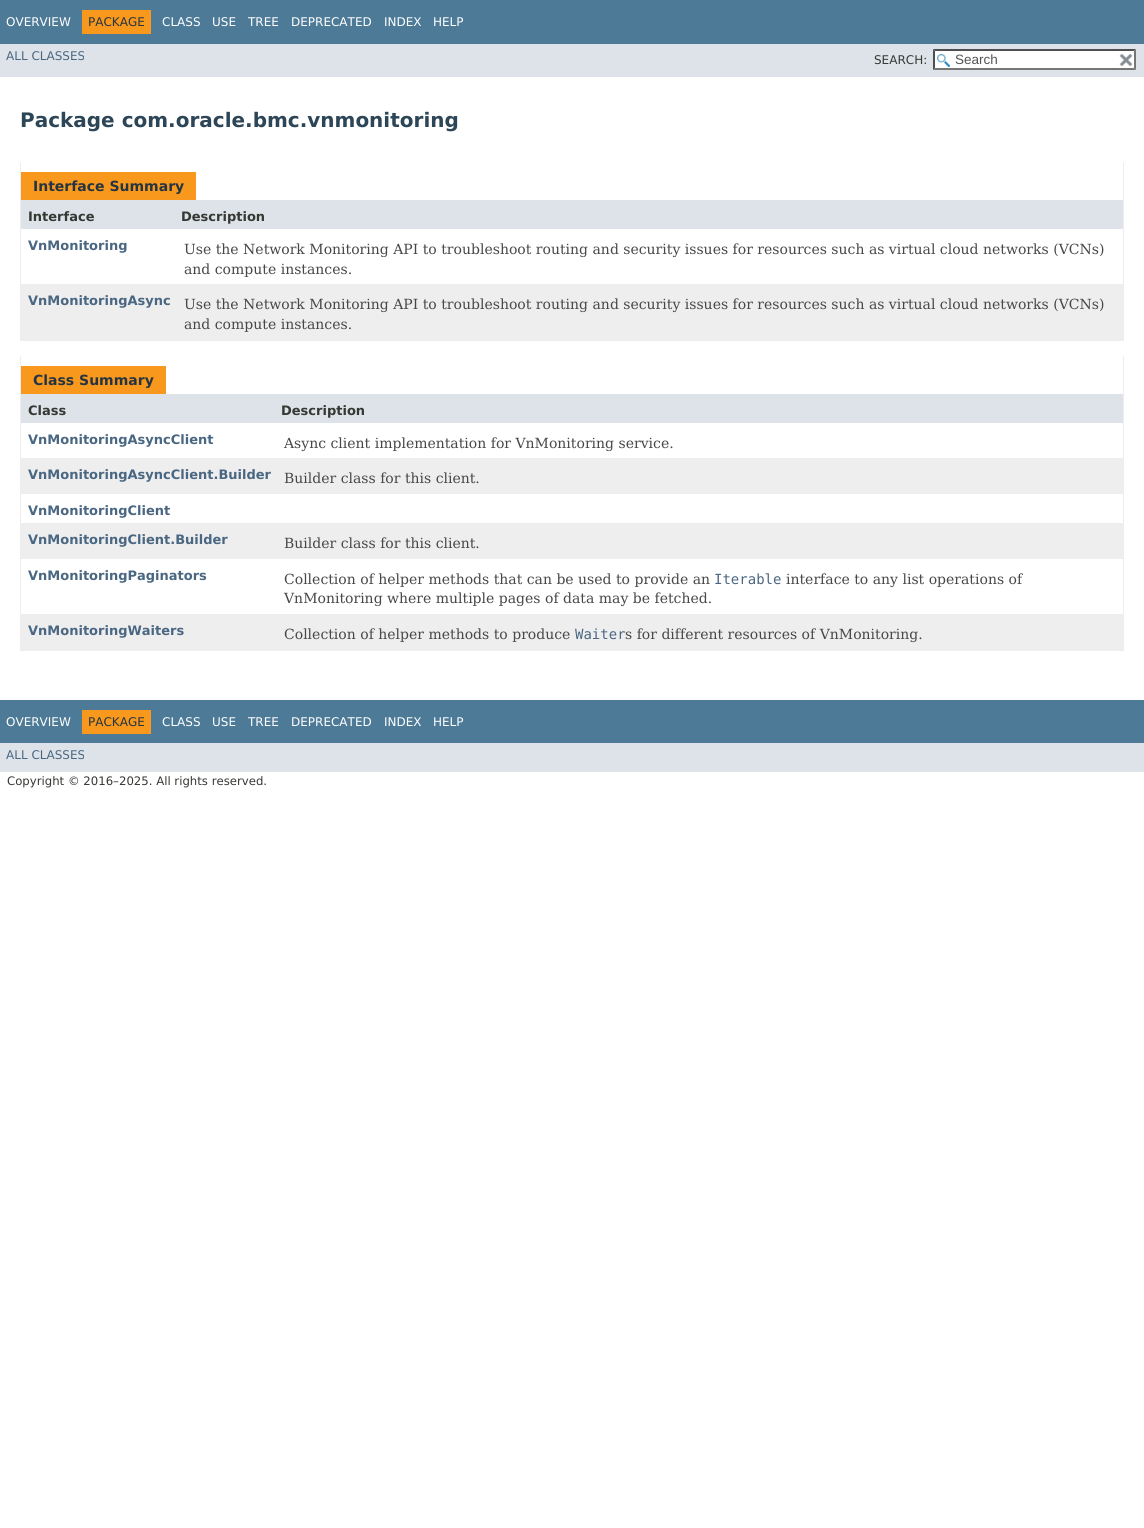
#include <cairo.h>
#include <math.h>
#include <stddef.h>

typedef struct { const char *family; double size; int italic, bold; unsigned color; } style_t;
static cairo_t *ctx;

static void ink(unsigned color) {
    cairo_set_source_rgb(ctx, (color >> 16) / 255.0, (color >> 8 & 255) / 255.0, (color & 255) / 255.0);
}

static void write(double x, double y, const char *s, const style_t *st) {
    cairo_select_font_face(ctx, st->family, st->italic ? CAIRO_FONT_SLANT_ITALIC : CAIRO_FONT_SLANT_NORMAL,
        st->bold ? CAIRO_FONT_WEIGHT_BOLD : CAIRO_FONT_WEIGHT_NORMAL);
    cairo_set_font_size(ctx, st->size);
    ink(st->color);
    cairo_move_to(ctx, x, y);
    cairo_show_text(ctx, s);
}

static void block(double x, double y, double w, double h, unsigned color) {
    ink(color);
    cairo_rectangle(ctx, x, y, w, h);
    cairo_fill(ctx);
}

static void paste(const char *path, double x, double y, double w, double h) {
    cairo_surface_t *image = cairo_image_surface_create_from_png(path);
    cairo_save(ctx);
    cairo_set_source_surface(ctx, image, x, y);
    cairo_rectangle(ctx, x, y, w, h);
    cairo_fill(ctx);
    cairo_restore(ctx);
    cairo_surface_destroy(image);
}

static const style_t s1 = {"DejaVu Sans", 12, 0, 0, 0xffffff};
static const style_t s2 = {"DejaVu Sans", 12, 0, 0, 0x253441};
static const style_t s3 = {"DejaVu Sans", 12, 0, 0, 0x4a6782};
static const style_t s4 = {"DejaVu Sans", 12, 0, 0, 0x353833};
static const style_t s5 = {"Liberation Sans", 13.5, 0, 0, 0x545454};
static const style_t s6 = {"DejaVu Sans", 20, 0, 1, 0x2c4557};
static const style_t s7 = {"DejaVu Sans", 14, 0, 1, 0x253441};
static const style_t s8 = {"DejaVu Sans", 13, 0, 1, 0x353833};
static const style_t s9 = {"DejaVu Sans", 13, 0, 1, 0x4a6782};
static const style_t s10 = {"DejaVu Serif", 14, 0, 0, 0x474747};
static const style_t s11 = {"DejaVu Sans Mono", 14, 0, 0, 0x4a6782};
static const style_t s12 = {"DejaVu Sans", 11.7, 0, 0, 0x353833};

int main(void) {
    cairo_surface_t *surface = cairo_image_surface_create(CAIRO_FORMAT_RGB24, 1144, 1528);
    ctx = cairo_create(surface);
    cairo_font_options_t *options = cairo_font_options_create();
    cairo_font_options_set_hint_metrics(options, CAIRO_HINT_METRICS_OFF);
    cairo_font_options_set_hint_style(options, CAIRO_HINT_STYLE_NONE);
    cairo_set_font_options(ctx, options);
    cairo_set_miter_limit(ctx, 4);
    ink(0xffffff);
    cairo_paint(ctx);
    block(0, 0, 1144, 44, 0x4d7a97);
    write(6, 26, "OVERVIEW", &s1);
    block(82, 10, 69, 24, 0xf8981d);
    write(88, 26, "PACKAGE", &s2);
    write(162, 26, "CLASS", &s1);
    write(212, 26, "USE", &s1);
    write(248, 26, "TREE", &s1);
    write(291, 26, "DEPRECATED", &s1);
    write(384, 26, "INDEX", &s1);
    write(433, 26, "HELP", &s1);
    block(0, 44, 1144, 33, 0xdee3e9);
    write(6, 60, "ALL CLASSES", &s3);
    write(874, 64, "SEARCH:", &s4);
    block(933, 49, 203, 21, 0xffffff);
    paste("pic1.png", 937, 54, 13, 13);
    ink(0x4f4f4f);
    cairo_new_path(ctx);
    cairo_move_to(ctx, 933, 49);
    cairo_line_to(ctx, 1136, 49);
    cairo_line_to(ctx, 1134, 51);
    cairo_line_to(ctx, 935, 51);
    cairo_close_path(ctx);
    cairo_fill(ctx);
    ink(0x767676);
    cairo_new_path(ctx);
    cairo_move_to(ctx, 1136, 49);
    cairo_line_to(ctx, 1136, 70);
    cairo_line_to(ctx, 1134, 68);
    cairo_line_to(ctx, 1134, 51);
    cairo_close_path(ctx);
    cairo_fill(ctx);
    cairo_new_path(ctx);
    cairo_move_to(ctx, 1136, 70);
    cairo_line_to(ctx, 933, 70);
    cairo_line_to(ctx, 935, 68);
    cairo_line_to(ctx, 1134, 68);
    cairo_close_path(ctx);
    cairo_fill(ctx);
    ink(0x4f4f4f);
    cairo_new_path(ctx);
    cairo_move_to(ctx, 933, 70);
    cairo_line_to(ctx, 933, 49);
    cairo_line_to(ctx, 935, 51);
    cairo_line_to(ctx, 935, 68);
    cairo_close_path(ctx);
    cairo_fill(ctx);
    write(955, 64, "Search", &s5);
    paste("pic2.png", 1119, 54, 14, 12);
    write(20, 127, "Package com.oracle.bmc.vnmonitoring", &s6);
    block(1123, 162, 1, 179, 0xeeeeee);
    block(20, 340, 1104, 1, 0xeeeeee);
    block(20, 162, 1, 179, 0xeeeeee);
    block(21, 172, 175, 28, 0xf8981d);
    write(33, 191, "Interface Summary", &s7);
    block(21, 200, 1102, 29, 0xdee3e9);
    write(28, 221, "Interface", &s8);
    write(181, 221, "Description", &s8);
    write(28, 250, "VnMonitoring", &s9);
    write(184, 254, "Use the Network Monitoring API to troubleshoot routing and security issues for resources such as virtual cloud networks (VCNs)", &s10);
    write(184, 274, "and compute instances.", &s10);
    block(21, 284, 1102, 56, 0xeeeeef);
    write(28, 305, "VnMonitoringAsync", &s9);
    write(184, 309, "Use the Network Monitoring API to troubleshoot routing and security issues for resources such as virtual cloud networks (VCNs)", &s10);
    write(184, 329, "and compute instances.", &s10);
    block(1123, 356, 1, 295, 0xeeeeee);
    block(20, 650, 1104, 1, 0xeeeeee);
    block(20, 356, 1, 295, 0xeeeeee);
    block(21, 366, 145, 28, 0xf8981d);
    write(33, 385, "Class Summary", &s7);
    block(21, 394, 1102, 29, 0xdee3e9);
    write(28, 415, "Class", &s8);
    write(281, 415, "Description", &s8);
    write(28, 444, "VnMonitoringAsyncClient", &s9);
    write(284, 448, "Async client implementation for VnMonitoring service.", &s10);
    block(21, 458, 1102, 36, 0xeeeeef);
    write(28, 479, "VnMonitoringAsyncClient.Builder", &s9);
    write(284, 483, "Builder class for this client.", &s10);
    write(28, 515, "VnMonitoringClient", &s9);
    block(21, 523, 1102, 36, 0xeeeeef);
    write(28, 544, "VnMonitoringClient.Builder", &s9);
    write(284, 548, "Builder class for this client.", &s10);
    write(28, 580, "VnMonitoringPaginators", &s9);
    write(284, 584, "Collection of helper methods that can be used to provide an", &s10);
    write(714, 584, "Iterable", &s11);
    write(786, 584, "interface to any list operations of", &s10);
    write(284, 603, "VnMonitoring where multiple pages of data may be fetched.", &s10);
    block(21, 614, 1102, 36, 0xeeeeef);
    write(28, 635, "VnMonitoringWaiters", &s9);
    write(284, 639, "Collection of helper methods to produce", &s10);
    write(575, 639, "Waiter", &s11);
    write(625, 639, "s for different resources of VnMonitoring.", &s10);
    block(0, 700, 1144, 43, 0x4d7a97);
    write(6, 726, "OVERVIEW", &s1);
    block(82, 710, 69, 24, 0xf8981d);
    write(88, 726, "PACKAGE", &s2);
    write(162, 726, "CLASS", &s1);
    write(212, 726, "USE", &s1);
    write(248, 726, "TREE", &s1);
    write(291, 726, "DEPRECATED", &s1);
    write(384, 726, "INDEX", &s1);
    write(433, 726, "HELP", &s1);
    block(0, 743, 1144, 29, 0xdee3e9);
    write(6, 759, "ALL CLASSES", &s3);
    write(7, 785, "Copyright © 2016–2025. All rights reserved.", &s12);
    cairo_surface_write_to_png(surface, "screenshot.png");
    cairo_font_options_destroy(options);
    cairo_destroy(ctx);
    cairo_surface_destroy(surface);
    return 0;
}
